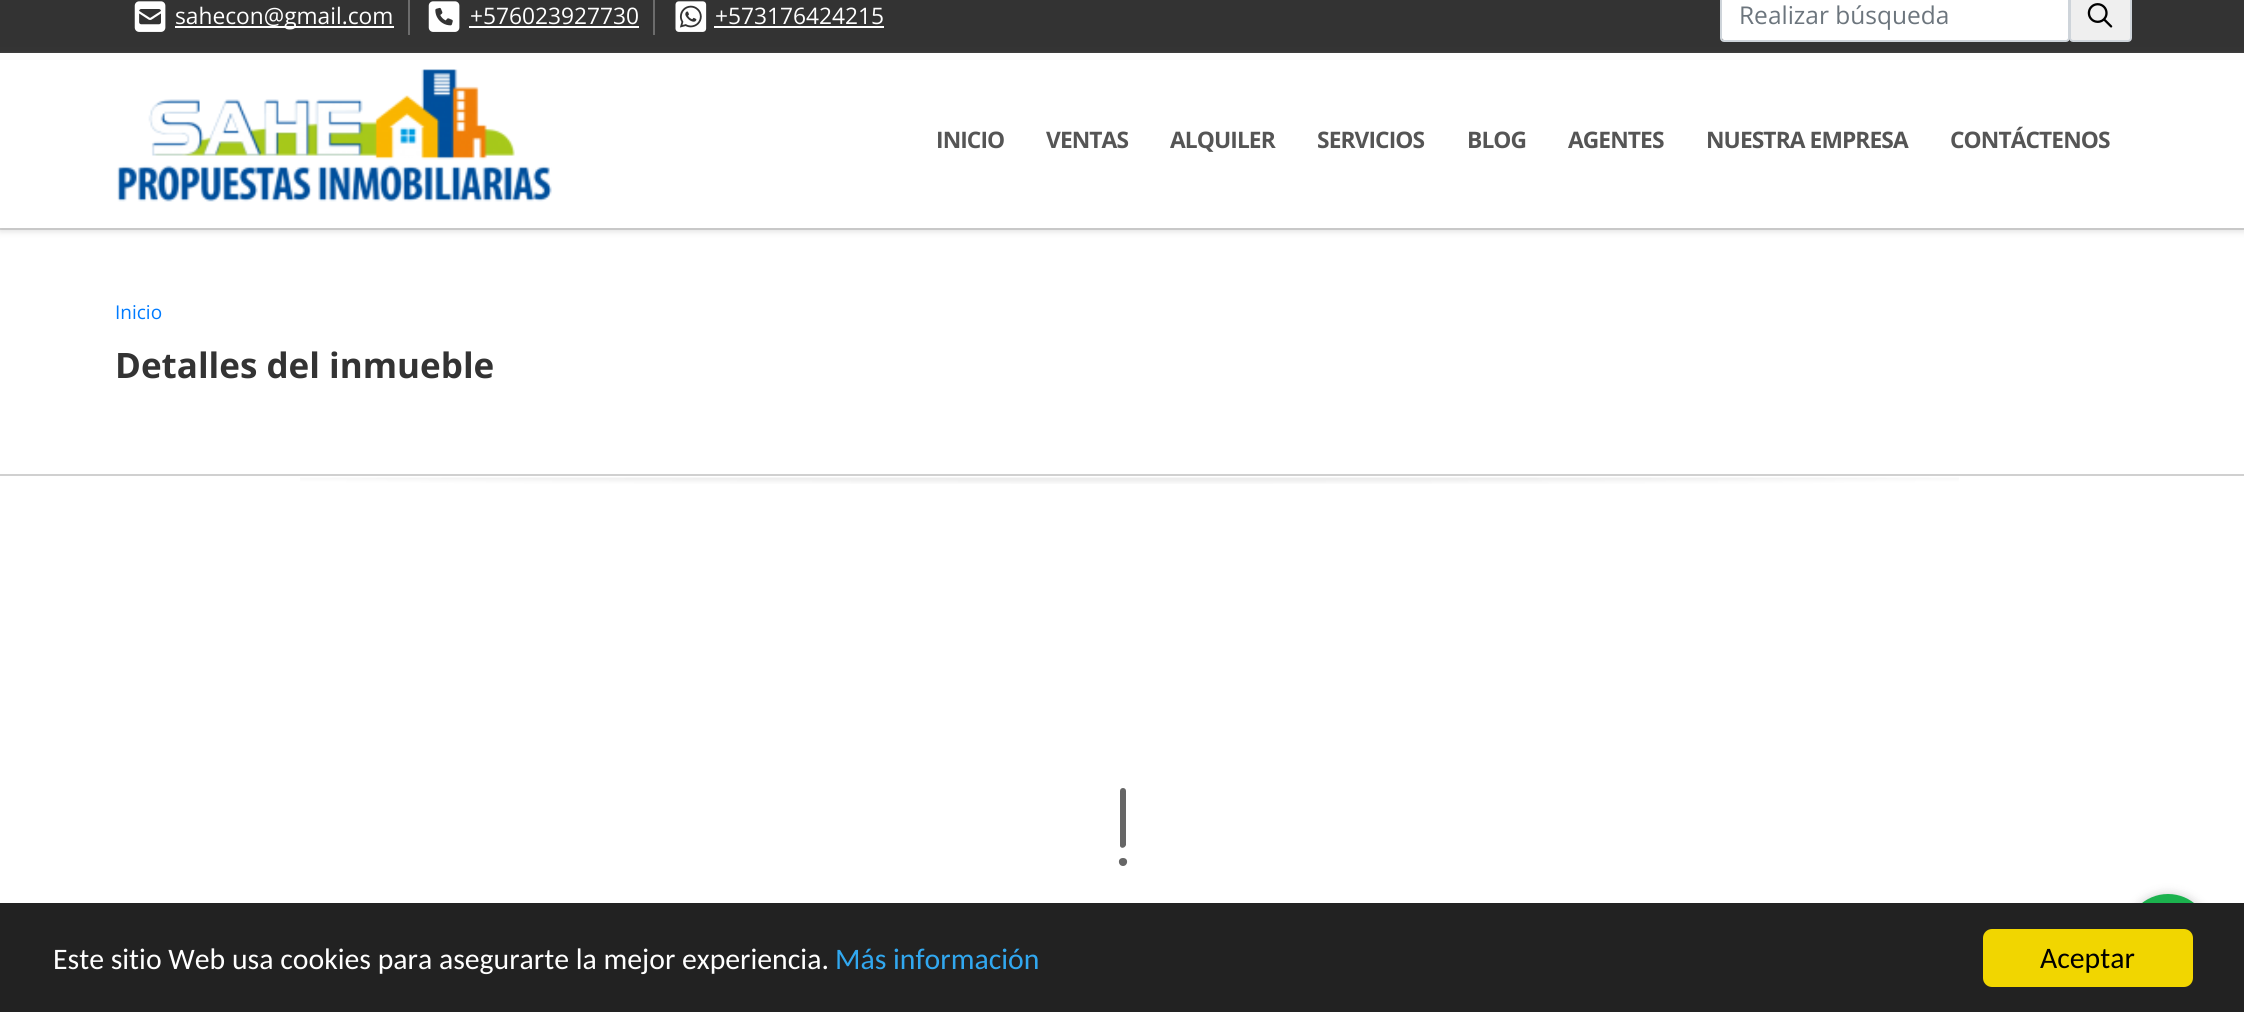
#include <cairo.h>
#include <math.h>
#include <stddef.h>

typedef struct { const char *family; double size; int italic, bold; unsigned color; } style_t;
static cairo_t *ctx;

static void ink(unsigned color) {
    cairo_set_source_rgb(ctx, (color >> 16) / 255.0, (color >> 8 & 255) / 255.0, (color & 255) / 255.0);
}

static void write(double x, double y, const char *s, const style_t *st) {
    cairo_select_font_face(ctx, st->family, st->italic ? CAIRO_FONT_SLANT_ITALIC : CAIRO_FONT_SLANT_NORMAL,
        st->bold ? CAIRO_FONT_WEIGHT_BOLD : CAIRO_FONT_WEIGHT_NORMAL);
    cairo_set_font_size(ctx, st->size);
    ink(st->color);
    cairo_move_to(ctx, x, y);
    cairo_show_text(ctx, s);
}

static void write_spaced(double x, double y, const char *s, double letter, double word) {
    cairo_move_to(ctx, x, y);
    while (*s) {
        char ch[5] = {0};
        int n = 0;
        do ch[n++] = *s++; while ((*s & 0xC0) == 0x80);
        cairo_show_text(ctx, ch);
        cairo_rel_move_to(ctx, letter + word * (*ch == ' '), 0);
    }
}

static void block(double x, double y, double w, double h, unsigned color) {
    ink(color);
    cairo_rectangle(ctx, x, y, w, h);
    cairo_fill(ctx);
}

static void round_path(double x, double y, double w, double h, double r) {
    cairo_new_sub_path(ctx);
    cairo_arc(ctx, x + w - r, y + h - r, r, 0, M_PI / 2);
    cairo_arc(ctx, x + r, y + h - r, r, M_PI / 2, M_PI);
    cairo_arc(ctx, x + r, y + r, r, M_PI, 1.5 * M_PI);
    cairo_arc(ctx, x + w - r, y + r, r, 1.5 * M_PI, 2 * M_PI);
    cairo_close_path(ctx);
}

static void blur_box(double x, double y, double w, double h, double r, double blur, double alpha) {
    cairo_push_group_with_content(ctx, CAIRO_CONTENT_ALPHA);
    cairo_set_operator(ctx, CAIRO_OPERATOR_SOURCE);
    for (int i = 15; i >= -15 && fmin(w, h) + blur * i / 3 > 0; i -= 2) {
        double e = blur * i / 6;
        cairo_set_source_rgba(ctx, 0, 0, 0, alpha * erfc((i - 1) / 8.5) / 2);
        round_path(x - e, y - e, w + 2 * e, h + 2 * e, fmax(0, fmin(r + e + blur * .6, fmin(w, h) / 2 + e)));
        cairo_fill(ctx);
    }
    cairo_pattern_t *soft = cairo_pop_group(ctx);
    cairo_mask(ctx, soft);
    cairo_pattern_destroy(soft);
}

static void paste(const char *path, double x, double y, double w, double h) {
    cairo_surface_t *image = cairo_image_surface_create_from_png(path);
    cairo_save(ctx);
    cairo_set_source_surface(ctx, image, x, y);
    cairo_rectangle(ctx, x, y, w, h);
    cairo_fill(ctx);
    cairo_restore(ctx);
    cairo_surface_destroy(image);
}

static const style_t s1 = {"Open Sans", 22.75, 0, 0, 0xffffff};
static const style_t s2 = {"Open Sans", 24.5, 0, 0, 0x6c757d};
static const style_t s3 = {"Open Sans", 19, 0, 0, 0x007bff};
static const style_t s4 = {"Open Sans", 35, 0, 1, 0x333333};
static const style_t s5 = {"Carlito", 29.75, 0, 0, 0xffffff};
static const style_t s6 = {"Carlito", 29.75, 0, 0, 0x31a8f0};
static const style_t s7 = {"Carlito", 29.75, 0, 0, 0x000000};

int main(void) {
    cairo_surface_t *surface = cairo_image_surface_create(CAIRO_FORMAT_RGB24, 2244, 1012);
    ctx = cairo_create(surface);
    cairo_font_options_t *options = cairo_font_options_create();
    cairo_font_options_set_hint_metrics(options, CAIRO_HINT_METRICS_OFF);
    cairo_font_options_set_hint_style(options, CAIRO_HINT_STYLE_NONE);
    cairo_set_font_options(ctx, options);
    cairo_set_miter_limit(ctx, 4);
    ink(0xffffff);
    cairo_paint(ctx);
    block(0, 0, 2244, 53, 0x333333);
    block(408, 0, 2, 35, 0x6c6c6c);
    paste("pic1.png", 134, 1, 32, 31);
    block(175, 26, 219, 2, 0xffffff);
    write(175, 24, "sahecon@gmail.com", &s1);
    block(653, 0, 2, 35, 0x6c6c6c);
    paste("pic2.png", 428, 1, 32, 31);
    write(470, 24, "+576023927730", &s1);
    block(469, 26, 170, 2, 0xffffff);
    paste("pic3.png", 675, 1, 32, 31);
    write(715, 24, "+573176424215", &s1);
    block(714, 26, 170, 2, 0xffffff);
    round_path(1722, -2, 347, 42, 2);
    cairo_fill(ctx);
    round_path(1721, -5, 348, 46, 3);
    ink(0xced4da);
    cairo_stroke(ctx);
    write(1739, 24, "Realizar búsqueda", &s2);
    ink(0xefefef);
    round_path(2070, -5, 61, 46, 3);
    cairo_fill_preserve(ctx);
    ink(0xced4da);
    cairo_stroke(ctx);
    paste("pic4.png", 2087, 3, 26, 25);
    block(0, 228, 2244, 2, 0xd0d0d0);
    ink(0xbababa);
    blur_box(0, 56, 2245, 175, 0, 3.5, 0.5);
    block(0, 53, 2244, 175, 0xffffff);
    paste("pic5.png", 117, 69, 435, 133);
    cairo_select_font_face(ctx, "Open Sans", CAIRO_FONT_SLANT_NORMAL, CAIRO_FONT_WEIGHT_BOLD);
    cairo_set_font_size(ctx, 22.75);
    ink(0x555555);
    write_spaced(936, 148, "INICIO", -0.9, 0);
    write_spaced(1046, 148, "VENTAS", -0.9, 0);
    write_spaced(1170, 148, "ALQUILER", -0.9, 0);
    write_spaced(1317, 148, "SERVICIOS", -0.9, 0);
    write_spaced(1467, 148, "BLOG", -0.9, 0);
    write_spaced(1568, 148, "AGENTES", -0.9, 0);
    write_spaced(1706, 148, "NUESTRA EMPRESA", -0.9, 0);
    write_spaced(1950, 148, "CONTÁCTENOS", -0.9, 0);
    block(0, 474, 2244, 2, 0xd0d0d0);
    write(115, 319, "Inicio", &s3);
    write(115, 378, "Detalles del inmueble", &s4);
    paste("pic6.png", 300, 477, 1659, 7);
    ink(0x666666);
    cairo_new_path(ctx);
    cairo_move_to(ctx, 1126, 791);
    cairo_curve_to(ctx, 1126, 787, 1120, 787, 1120, 791);
    cairo_line_to(ctx, 1120, 846);
    cairo_curve_to(ctx, 1121, 849, 1125, 848, 1126, 845);
    cairo_close_path(ctx);
    cairo_move_to(ctx, 1123, 866);
    cairo_curve_to(ctx, 1128, 866, 1129, 858, 1123, 858);
    cairo_curve_to(ctx, 1117, 858, 1118, 866, 1123, 866);
    cairo_close_path(ctx);
    cairo_fill(ctx);
    ink(0x000000);
    blur_box(2126, 894, 84, 84, 42, 5, 0.2);
    ink(0x1bb24e);
    cairo_arc(ctx, 2168, 936, 42, 0, 2 * M_PI);
    cairo_fill(ctx);
    block(0, 903, 2244, 109, 0x222222);
    write(53, 969, "Este sitio Web usa cookies para asegurarte la mejor experiencia.", &s5);
    write(835, 969, "Más información", &s6);
    ink(0xf1d600);
    round_path(1983, 929, 210, 58, 9);
    cairo_fill(ctx);
    write(2040, 968, "Aceptar", &s7);
    cairo_surface_write_to_png(surface, "screenshot.png");
    cairo_font_options_destroy(options);
    cairo_destroy(ctx);
    cairo_surface_destroy(surface);
    return 0;
}
